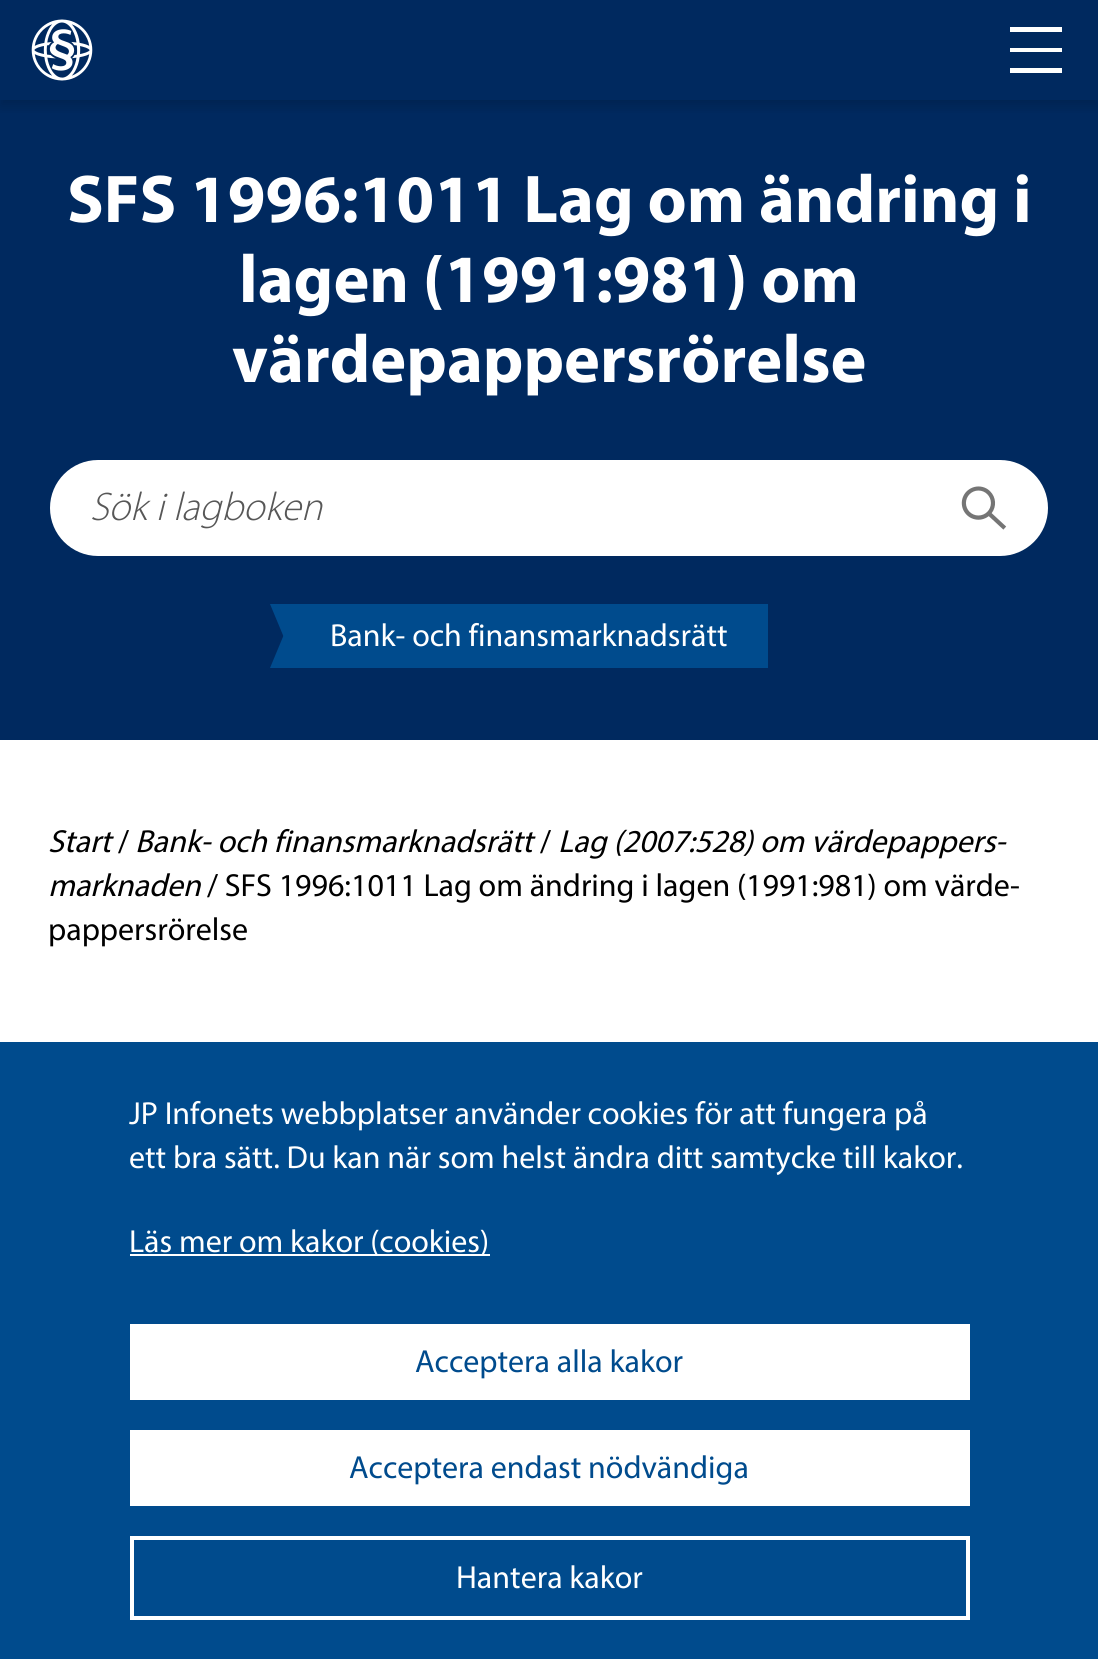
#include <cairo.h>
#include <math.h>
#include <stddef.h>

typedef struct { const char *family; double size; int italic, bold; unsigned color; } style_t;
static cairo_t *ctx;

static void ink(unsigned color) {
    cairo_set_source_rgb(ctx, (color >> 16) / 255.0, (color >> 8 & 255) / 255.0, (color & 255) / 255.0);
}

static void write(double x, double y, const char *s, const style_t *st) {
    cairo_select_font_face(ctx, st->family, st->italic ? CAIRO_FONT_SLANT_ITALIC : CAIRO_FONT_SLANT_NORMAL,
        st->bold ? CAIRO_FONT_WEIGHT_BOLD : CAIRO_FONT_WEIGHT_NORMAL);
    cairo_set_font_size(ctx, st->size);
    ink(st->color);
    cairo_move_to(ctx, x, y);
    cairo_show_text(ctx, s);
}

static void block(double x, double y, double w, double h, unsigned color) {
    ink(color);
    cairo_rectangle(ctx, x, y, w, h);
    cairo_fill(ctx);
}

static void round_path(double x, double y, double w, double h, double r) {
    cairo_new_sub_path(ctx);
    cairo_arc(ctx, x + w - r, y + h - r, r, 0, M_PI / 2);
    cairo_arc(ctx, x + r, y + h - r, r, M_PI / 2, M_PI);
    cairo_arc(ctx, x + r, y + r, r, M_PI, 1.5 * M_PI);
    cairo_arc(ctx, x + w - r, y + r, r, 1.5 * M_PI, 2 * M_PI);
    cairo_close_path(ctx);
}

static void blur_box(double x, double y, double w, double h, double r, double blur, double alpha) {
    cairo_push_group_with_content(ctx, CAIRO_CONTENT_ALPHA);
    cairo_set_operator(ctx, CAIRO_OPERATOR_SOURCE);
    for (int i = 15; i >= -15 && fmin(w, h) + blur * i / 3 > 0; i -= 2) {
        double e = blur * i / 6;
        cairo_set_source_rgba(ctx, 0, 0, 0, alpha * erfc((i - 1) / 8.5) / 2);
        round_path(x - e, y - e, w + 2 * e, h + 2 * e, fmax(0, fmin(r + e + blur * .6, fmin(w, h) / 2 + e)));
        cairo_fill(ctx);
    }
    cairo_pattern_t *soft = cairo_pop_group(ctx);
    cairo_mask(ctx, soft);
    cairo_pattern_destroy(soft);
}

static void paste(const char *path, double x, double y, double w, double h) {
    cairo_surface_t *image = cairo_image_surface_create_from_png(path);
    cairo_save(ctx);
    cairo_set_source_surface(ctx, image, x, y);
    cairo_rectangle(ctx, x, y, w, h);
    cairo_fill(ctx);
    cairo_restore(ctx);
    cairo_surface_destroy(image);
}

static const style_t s1 = {"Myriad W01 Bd", 68, 0, 1, 0xffffff};
static const style_t s2 = {"Myriad Light", 40, 1, 0, 0x575757};
static const style_t s3 = {"Myriad", 32, 0, 0, 0xffffff};
static const style_t s4 = {"Myriad", 32, 1, 0, 0x000000};
static const style_t s5 = {"Myriad", 32, 0, 0, 0x000000};
static const style_t s6 = {"Myriad", 32, 0, 0, 0x004b8d};

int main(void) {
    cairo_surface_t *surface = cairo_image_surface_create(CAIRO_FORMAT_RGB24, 1098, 1659);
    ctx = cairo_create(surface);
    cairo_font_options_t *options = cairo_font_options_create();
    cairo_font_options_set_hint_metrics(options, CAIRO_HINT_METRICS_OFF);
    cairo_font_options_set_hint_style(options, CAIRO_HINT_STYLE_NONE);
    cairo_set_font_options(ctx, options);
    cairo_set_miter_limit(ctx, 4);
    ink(0xffffff);
    cairo_paint(ctx);
    block(0, 0, 1098, 740, 0x00295f);
    cairo_save(ctx);
    cairo_rectangle(ctx, 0, 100, 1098, 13);
    cairo_clip(ctx);
    ink(0x000000);
    blur_box(0, 6, 1098, 100, 0, 6, 0.16);
    cairo_restore(ctx);
    paste("pic1.png", 31, 19, 62, 62);
    ink(0xffffff);
    cairo_new_path(ctx);
    cairo_move_to(ctx, 1010, 68);
    cairo_line_to(ctx, 1062, 68);
    cairo_line_to(ctx, 1062, 73);
    cairo_line_to(ctx, 1010, 73);
    cairo_close_path(ctx);
    cairo_move_to(ctx, 1010, 48);
    cairo_line_to(ctx, 1062, 48);
    cairo_line_to(ctx, 1062, 52);
    cairo_line_to(ctx, 1010, 52);
    cairo_close_path(ctx);
    cairo_move_to(ctx, 1010, 27);
    cairo_line_to(ctx, 1062, 27);
    cairo_line_to(ctx, 1062, 32);
    cairo_line_to(ctx, 1010, 32);
    cairo_close_path(ctx);
    cairo_fill(ctx);
    write(67, 222, "SFS 1996:1011 Lag om ändring i", &s1);
    write(239, 302, "lagen (1991:981) om", &s1);
    write(232, 382, "värdepappersrörelse", &s1);
    round_path(50, 460, 998, 96, 48);
    cairo_fill(ctx);
    write(90, 520, "Sök i lagboken", &s2);
    paste("pic2.png", 961, 486, 46, 44);
    block(306, 604, 462, 64, 0x004b8d);
    write(330, 646, "Bank- och finansmarknadsrätt", &s3);
    ink(0x004b8d);
    cairo_new_path(ctx);
    cairo_move_to(ctx, 338, 668);
    cairo_line_to(ctx, 270, 668);
    cairo_line_to(ctx, 290, 620);
    cairo_close_path(ctx);
    cairo_fill(ctx);
    cairo_new_path(ctx);
    cairo_move_to(ctx, 270, 604);
    cairo_line_to(ctx, 338, 604);
    cairo_line_to(ctx, 290, 652);
    cairo_close_path(ctx);
    cairo_fill(ctx);
    write(48, 852, "Start", &s4);
    write(118, 852, "/", &s5);
    write(135, 852, "Bank- och finansmarknadsrätt", &s4);
    write(540, 852, "/", &s5);
    write(558, 852, "Lag (2007:528) om värdepappers-", &s4);
    write(48, 896, "marknaden", &s4);
    write(207, 896, "/ SFS 1996:1011 Lag om ändring i lagen (1991:981) om värde-", &s5);
    write(48, 940, "pappersrörelse", &s5);
    block(0, 1042, 1098, 617, 0x004b8d);
    write(129, 1124, "JP Infonets webbplatser använder cookies för att fungera på", &s3);
    write(129, 1168, "ett bra sätt. Du kan när som helst ändra ditt samtycke till kakor.", &s3);
    block(130, 1254, 360, 2, 0xffffff);
    write(129, 1252, "Läs mer om kakor (cookies)", &s3);
    block(130, 1324, 840, 76, 0xffffff);
    write(415, 1372, "Acceptera alla kakor", &s6);
    block(130, 1430, 840, 76, 0xffffff);
    write(349, 1478, "Acceptera endast nödvändiga", &s6);
    cairo_rectangle(ctx, 132, 1538, 836, 80);
    ink(0xffffff);
    cairo_set_line_width(ctx, 4);
    cairo_stroke(ctx);
    write(456, 1588, "Hantera kakor", &s3);
    cairo_surface_write_to_png(surface, "screenshot.png");
    cairo_font_options_destroy(options);
    cairo_destroy(ctx);
    cairo_surface_destroy(surface);
    return 0;
}
